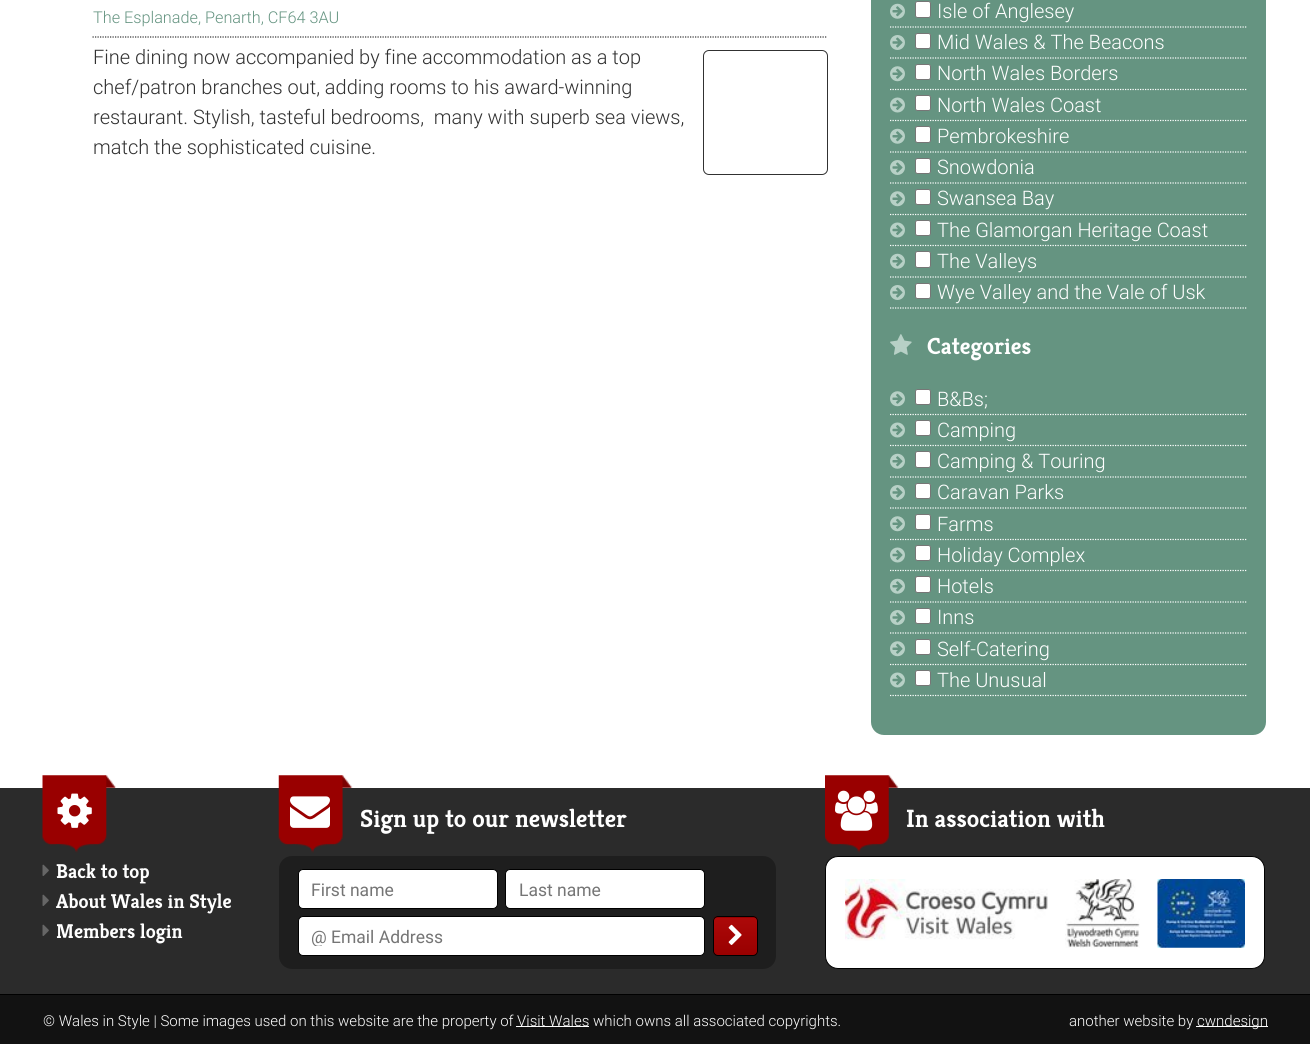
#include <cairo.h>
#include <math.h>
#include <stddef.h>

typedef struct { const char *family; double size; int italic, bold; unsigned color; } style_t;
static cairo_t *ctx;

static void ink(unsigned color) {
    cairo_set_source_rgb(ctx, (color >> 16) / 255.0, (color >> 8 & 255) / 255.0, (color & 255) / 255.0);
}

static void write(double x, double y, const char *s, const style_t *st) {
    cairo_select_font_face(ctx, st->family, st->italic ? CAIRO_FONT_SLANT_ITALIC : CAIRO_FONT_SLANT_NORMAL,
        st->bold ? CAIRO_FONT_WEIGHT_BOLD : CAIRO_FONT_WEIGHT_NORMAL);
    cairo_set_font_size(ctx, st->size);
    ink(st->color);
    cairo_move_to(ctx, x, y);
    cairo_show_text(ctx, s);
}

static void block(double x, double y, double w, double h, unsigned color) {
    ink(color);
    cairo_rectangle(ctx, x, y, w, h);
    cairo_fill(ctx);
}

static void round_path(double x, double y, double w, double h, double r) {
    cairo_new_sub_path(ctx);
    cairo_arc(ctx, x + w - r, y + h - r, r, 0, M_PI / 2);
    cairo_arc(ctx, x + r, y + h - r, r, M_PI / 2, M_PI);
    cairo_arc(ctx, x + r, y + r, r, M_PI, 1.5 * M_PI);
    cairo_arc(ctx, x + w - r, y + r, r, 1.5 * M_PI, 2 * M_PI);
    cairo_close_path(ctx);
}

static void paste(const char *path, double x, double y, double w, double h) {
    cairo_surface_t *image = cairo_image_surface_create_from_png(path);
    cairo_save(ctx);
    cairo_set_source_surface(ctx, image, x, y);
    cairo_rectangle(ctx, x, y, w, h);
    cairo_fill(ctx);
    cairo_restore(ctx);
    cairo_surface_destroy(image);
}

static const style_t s1 = {"Roboto Light", 16.25, 0, 0, 0x659481};
static const style_t s2 = {"Roboto Light", 20, 0, 0, 0x313131};
static const style_t s3 = {"Roboto Light", 20, 0, 0, 0xffffff};
static const style_t s4 = {"Kreon", 23.5, 0, 1, 0xffffff};
static const style_t s5 = {"Kreon", 25, 0, 1, 0xffffff};
static const style_t s6 = {"Roboto", 17.5, 0, 0, 0x757575};
static const style_t s7 = {"Kreon", 20, 0, 1, 0xffffff};
static const style_t s8 = {"Roboto Light", 15, 0, 0, 0xffffff};

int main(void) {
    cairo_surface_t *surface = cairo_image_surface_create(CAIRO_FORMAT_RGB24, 1310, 1044);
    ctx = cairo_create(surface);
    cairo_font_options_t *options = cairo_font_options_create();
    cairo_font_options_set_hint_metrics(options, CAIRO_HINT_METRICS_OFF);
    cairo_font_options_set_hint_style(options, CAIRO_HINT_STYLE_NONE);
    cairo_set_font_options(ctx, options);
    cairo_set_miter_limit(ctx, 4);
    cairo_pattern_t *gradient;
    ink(0xffffff);
    cairo_paint(ctx);
    cairo_new_path(ctx);
    cairo_move_to(ctx, 92.5, 37);
    cairo_line_to(ctx, 827.5, 37);
    ink(0x313131);
    cairo_set_line_width(ctx, 1.2);
    cairo_set_dash(ctx, (double[]){1.25, 1.25}, 2, 0);
    cairo_stroke(ctx);
    write(93, 23, "The Esplanade, Penarth, CF64 3AU", &s1);
    write(93, 64, "Fine dining now accompanied by fine accommodation as a top", &s2);
    write(93, 94, "chef/patron branches out, adding rooms to his award-winning", &s2);
    write(93, 124, "restaurant. Stylish, tasteful bedrooms,  many with superb sea views,", &s2);
    write(93, 154, "match the sophisticated cuisine.", &s2);
    round_path(703.5, 50.5, 124, 124, 5.5);
    cairo_set_line_width(ctx, 1);
    cairo_set_dash(ctx, NULL, 0, 0);
    cairo_stroke(ctx);
    ink(0x659481);
    round_path(871, -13, 395, 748, 13);
    cairo_fill(ctx);
    cairo_new_path(ctx);
    cairo_move_to(ctx, 890, 27);
    cairo_line_to(ctx, 1247.5, 27);
    ink(0xffffff);
    cairo_set_line_width(ctx, 1.2);
    cairo_set_dash(ctx, (double[]){1.25, 1.25}, 2, 0);
    cairo_stroke(ctx);
    paste("pic1.png", 890, 3, 15, 16);
    round_path(915.5, 1.5, 15, 16, 2);
    cairo_fill_preserve(ctx);
    ink(0x767676);
    cairo_set_line_width(ctx, 1);
    cairo_set_dash(ctx, NULL, 0, 0);
    cairo_stroke(ctx);
    write(937, 18, "Isle of Anglesey", &s3);
    cairo_new_path(ctx);
    cairo_move_to(ctx, 890, 58);
    cairo_line_to(ctx, 1247.5, 58);
    cairo_set_line_width(ctx, 1.2);
    cairo_set_dash(ctx, (double[]){1.25, 1.25}, 2, 0);
    cairo_stroke(ctx);
    paste("pic2.png", 890, 35, 15, 15);
    round_path(915.5, 33.5, 15, 15, 2);
    cairo_fill_preserve(ctx);
    ink(0x767676);
    cairo_set_line_width(ctx, 1);
    cairo_set_dash(ctx, NULL, 0, 0);
    cairo_stroke(ctx);
    write(937, 49, "Mid Wales & The Beacons", &s3);
    cairo_new_path(ctx);
    cairo_move_to(ctx, 890, 89.5);
    cairo_line_to(ctx, 1247.5, 89.5);
    cairo_set_line_width(ctx, 1.2);
    cairo_set_dash(ctx, (double[]){1.25, 1.25}, 2, 0);
    cairo_stroke(ctx);
    paste("pic3.png", 890, 66, 15, 16);
    round_path(915.5, 64.5, 15, 15, 2);
    cairo_fill_preserve(ctx);
    ink(0x767676);
    cairo_set_line_width(ctx, 1);
    cairo_set_dash(ctx, NULL, 0, 0);
    cairo_stroke(ctx);
    write(937, 80, "North Wales Borders", &s3);
    cairo_new_path(ctx);
    cairo_move_to(ctx, 890, 120.5);
    cairo_line_to(ctx, 1247.5, 120.5);
    cairo_set_line_width(ctx, 1.2);
    cairo_set_dash(ctx, (double[]){1.25, 1.25}, 2, 0);
    cairo_stroke(ctx);
    paste("pic4.png", 890, 97, 15, 16);
    round_path(915.5, 95.5, 15, 15, 2);
    cairo_fill_preserve(ctx);
    ink(0x767676);
    cairo_set_line_width(ctx, 1);
    cairo_set_dash(ctx, NULL, 0, 0);
    cairo_stroke(ctx);
    write(937, 112, "North Wales Coast", &s3);
    cairo_new_path(ctx);
    cairo_move_to(ctx, 890, 152);
    cairo_line_to(ctx, 1247.5, 152);
    cairo_set_line_width(ctx, 1.2);
    cairo_set_dash(ctx, (double[]){1.25, 1.25}, 2, 0);
    cairo_stroke(ctx);
    paste("pic1.png", 890, 128, 15, 16);
    round_path(915.5, 126.5, 15, 16, 2);
    cairo_fill_preserve(ctx);
    ink(0x767676);
    cairo_set_line_width(ctx, 1);
    cairo_set_dash(ctx, NULL, 0, 0);
    cairo_stroke(ctx);
    write(937, 143, "Pembrokeshire", &s3);
    cairo_new_path(ctx);
    cairo_move_to(ctx, 890, 183);
    cairo_line_to(ctx, 1247.5, 183);
    cairo_set_line_width(ctx, 1.2);
    cairo_set_dash(ctx, (double[]){1.25, 1.25}, 2, 0);
    cairo_stroke(ctx);
    paste("pic2.png", 890, 160, 15, 15);
    round_path(915.5, 158.5, 15, 15, 2);
    cairo_fill_preserve(ctx);
    ink(0x767676);
    cairo_set_line_width(ctx, 1);
    cairo_set_dash(ctx, NULL, 0, 0);
    cairo_stroke(ctx);
    write(937, 174, "Snowdonia", &s3);
    cairo_new_path(ctx);
    cairo_move_to(ctx, 890, 214.5);
    cairo_line_to(ctx, 1247.5, 214.5);
    cairo_set_line_width(ctx, 1.2);
    cairo_set_dash(ctx, (double[]){1.25, 1.25}, 2, 0);
    cairo_stroke(ctx);
    paste("pic3.png", 890, 191, 15, 16);
    round_path(915.5, 189.5, 15, 15, 2);
    cairo_fill_preserve(ctx);
    ink(0x767676);
    cairo_set_line_width(ctx, 1);
    cairo_set_dash(ctx, NULL, 0, 0);
    cairo_stroke(ctx);
    write(937, 205, "Swansea Bay", &s3);
    cairo_new_path(ctx);
    cairo_move_to(ctx, 890, 245.5);
    cairo_line_to(ctx, 1247.5, 245.5);
    cairo_set_line_width(ctx, 1.2);
    cairo_set_dash(ctx, (double[]){1.25, 1.25}, 2, 0);
    cairo_stroke(ctx);
    paste("pic4.png", 890, 222, 15, 16);
    round_path(915.5, 220.5, 15, 15, 2);
    cairo_fill_preserve(ctx);
    ink(0x767676);
    cairo_set_line_width(ctx, 1);
    cairo_set_dash(ctx, NULL, 0, 0);
    cairo_stroke(ctx);
    write(937, 237, "The Glamorgan Heritage Coast", &s3);
    cairo_new_path(ctx);
    cairo_move_to(ctx, 890, 277);
    cairo_line_to(ctx, 1247.5, 277);
    cairo_set_line_width(ctx, 1.2);
    cairo_set_dash(ctx, (double[]){1.25, 1.25}, 2, 0);
    cairo_stroke(ctx);
    paste("pic1.png", 890, 253, 15, 16);
    round_path(915.5, 251.5, 15, 16, 2);
    cairo_fill_preserve(ctx);
    ink(0x767676);
    cairo_set_line_width(ctx, 1);
    cairo_set_dash(ctx, NULL, 0, 0);
    cairo_stroke(ctx);
    write(937, 268, "The Valleys", &s3);
    cairo_new_path(ctx);
    cairo_move_to(ctx, 890, 308);
    cairo_line_to(ctx, 1247.5, 308);
    cairo_set_line_width(ctx, 1.2);
    cairo_set_dash(ctx, (double[]){1.25, 1.25}, 2, 0);
    cairo_stroke(ctx);
    paste("pic2.png", 890, 285, 15, 15);
    round_path(915.5, 283.5, 15, 15, 2);
    cairo_fill_preserve(ctx);
    ink(0x767676);
    cairo_set_line_width(ctx, 1);
    cairo_set_dash(ctx, NULL, 0, 0);
    cairo_stroke(ctx);
    write(937, 299, "Wye Valley and the Vale of Usk", &s3);
    paste("pic5.png", 890, 334, 22, 21);
    write(927, 354, "Categories", &s4);
    cairo_new_path(ctx);
    cairo_move_to(ctx, 890, 414.5);
    cairo_line_to(ctx, 1247.5, 414.5);
    cairo_set_line_width(ctx, 1.2);
    cairo_set_dash(ctx, (double[]){1.25, 1.25}, 2, 0);
    cairo_stroke(ctx);
    paste("pic3.png", 890, 391, 15, 16);
    round_path(915.5, 389.5, 15, 15, 2);
    cairo_fill_preserve(ctx);
    ink(0x767676);
    cairo_set_line_width(ctx, 1);
    cairo_set_dash(ctx, NULL, 0, 0);
    cairo_stroke(ctx);
    write(937, 406, "B&Bs;", &s3);
    cairo_new_path(ctx);
    cairo_move_to(ctx, 890, 445.5);
    cairo_line_to(ctx, 1247.5, 445.5);
    cairo_set_line_width(ctx, 1.2);
    cairo_set_dash(ctx, (double[]){1.25, 1.25}, 2, 0);
    cairo_stroke(ctx);
    paste("pic4.png", 890, 422, 15, 16);
    round_path(915.5, 420.5, 15, 15, 2);
    cairo_fill_preserve(ctx);
    ink(0x767676);
    cairo_set_line_width(ctx, 1);
    cairo_set_dash(ctx, NULL, 0, 0);
    cairo_stroke(ctx);
    write(937, 437, "Camping", &s3);
    cairo_new_path(ctx);
    cairo_move_to(ctx, 890, 477);
    cairo_line_to(ctx, 1247.5, 477);
    cairo_set_line_width(ctx, 1.2);
    cairo_set_dash(ctx, (double[]){1.25, 1.25}, 2, 0);
    cairo_stroke(ctx);
    paste("pic1.png", 890, 453, 15, 16);
    round_path(915.5, 451.5, 15, 16, 2);
    cairo_fill_preserve(ctx);
    ink(0x767676);
    cairo_set_line_width(ctx, 1);
    cairo_set_dash(ctx, NULL, 0, 0);
    cairo_stroke(ctx);
    write(937, 468, "Camping & Touring", &s3);
    cairo_new_path(ctx);
    cairo_move_to(ctx, 890, 508);
    cairo_line_to(ctx, 1247.5, 508);
    cairo_set_line_width(ctx, 1.2);
    cairo_set_dash(ctx, (double[]){1.25, 1.25}, 2, 0);
    cairo_stroke(ctx);
    paste("pic2.png", 890, 485, 15, 15);
    round_path(915.5, 483.5, 15, 15, 2);
    cairo_fill_preserve(ctx);
    ink(0x767676);
    cairo_set_line_width(ctx, 1);
    cairo_set_dash(ctx, NULL, 0, 0);
    cairo_stroke(ctx);
    write(937, 499, "Caravan Parks", &s3);
    cairo_new_path(ctx);
    cairo_move_to(ctx, 890, 539.5);
    cairo_line_to(ctx, 1247.5, 539.5);
    cairo_set_line_width(ctx, 1.2);
    cairo_set_dash(ctx, (double[]){1.25, 1.25}, 2, 0);
    cairo_stroke(ctx);
    paste("pic3.png", 890, 516, 15, 16);
    round_path(915.5, 514.5, 15, 15, 2);
    cairo_fill_preserve(ctx);
    ink(0x767676);
    cairo_set_line_width(ctx, 1);
    cairo_set_dash(ctx, NULL, 0, 0);
    cairo_stroke(ctx);
    write(937, 531, "Farms", &s3);
    cairo_new_path(ctx);
    cairo_move_to(ctx, 890, 570.5);
    cairo_line_to(ctx, 1247.5, 570.5);
    cairo_set_line_width(ctx, 1.2);
    cairo_set_dash(ctx, (double[]){1.25, 1.25}, 2, 0);
    cairo_stroke(ctx);
    paste("pic4.png", 890, 547, 15, 16);
    round_path(915.5, 545.5, 15, 15, 2);
    cairo_fill_preserve(ctx);
    ink(0x767676);
    cairo_set_line_width(ctx, 1);
    cairo_set_dash(ctx, NULL, 0, 0);
    cairo_stroke(ctx);
    write(937, 562, "Holiday Complex", &s3);
    cairo_new_path(ctx);
    cairo_move_to(ctx, 890, 602);
    cairo_line_to(ctx, 1247.5, 602);
    cairo_set_line_width(ctx, 1.2);
    cairo_set_dash(ctx, (double[]){1.25, 1.25}, 2, 0);
    cairo_stroke(ctx);
    paste("pic1.png", 890, 578, 15, 16);
    round_path(915.5, 576.5, 15, 16, 2);
    cairo_fill_preserve(ctx);
    ink(0x767676);
    cairo_set_line_width(ctx, 1);
    cairo_set_dash(ctx, NULL, 0, 0);
    cairo_stroke(ctx);
    write(937, 593, "Hotels", &s3);
    cairo_new_path(ctx);
    cairo_move_to(ctx, 890, 633);
    cairo_line_to(ctx, 1247.5, 633);
    cairo_set_line_width(ctx, 1.2);
    cairo_set_dash(ctx, (double[]){1.25, 1.25}, 2, 0);
    cairo_stroke(ctx);
    paste("pic2.png", 890, 610, 15, 15);
    round_path(915.5, 608.5, 15, 15, 2);
    cairo_fill_preserve(ctx);
    ink(0x767676);
    cairo_set_line_width(ctx, 1);
    cairo_set_dash(ctx, NULL, 0, 0);
    cairo_stroke(ctx);
    write(937, 624, "Inns", &s3);
    cairo_new_path(ctx);
    cairo_move_to(ctx, 890, 664.5);
    cairo_line_to(ctx, 1247.5, 664.5);
    cairo_set_line_width(ctx, 1.2);
    cairo_set_dash(ctx, (double[]){1.25, 1.25}, 2, 0);
    cairo_stroke(ctx);
    paste("pic3.png", 890, 641, 15, 16);
    round_path(915.5, 639.5, 15, 15, 2);
    cairo_fill_preserve(ctx);
    ink(0x767676);
    cairo_set_line_width(ctx, 1);
    cairo_set_dash(ctx, NULL, 0, 0);
    cairo_stroke(ctx);
    write(937, 656, "Self-Catering", &s3);
    cairo_new_path(ctx);
    cairo_move_to(ctx, 890, 695.5);
    cairo_line_to(ctx, 1247.5, 695.5);
    cairo_set_line_width(ctx, 1.2);
    cairo_set_dash(ctx, (double[]){1.25, 1.25}, 2, 0);
    cairo_stroke(ctx);
    paste("pic4.png", 890, 672, 15, 16);
    round_path(915.5, 670.5, 15, 15, 2);
    cairo_fill_preserve(ctx);
    ink(0x767676);
    cairo_set_line_width(ctx, 1);
    cairo_set_dash(ctx, NULL, 0, 0);
    cairo_stroke(ctx);
    write(937, 687, "The Unusual", &s3);
    block(0, 788, 1310, 206, 0x2b2b2b);
    paste("pic6.png", 278, 775, 75, 78);
    paste("pic7.png", 290, 796, 40, 32);
    write(360, 827, "Sign up to our newsletter", &s5);
    ink(0x1e1e1e);
    round_path(279, 856, 497, 113, 13);
    cairo_fill(ctx);
    ink(0xffffff);
    round_path(298.5, 869.5, 199, 39, 4.5);
    cairo_fill_preserve(ctx);
    ink(0x000000);
    cairo_stroke(ctx);
    write(311, 896, "First name", &s6);
    ink(0xffffff);
    round_path(505.5, 869.5, 199, 39, 4.5);
    cairo_fill_preserve(ctx);
    ink(0x000000);
    cairo_stroke(ctx);
    write(519, 896, "Last name", &s6);
    ink(0xffffff);
    round_path(298.5, 916.5, 406, 39, 4.5);
    cairo_fill_preserve(ctx);
    ink(0x000000);
    cairo_stroke(ctx);
    cairo_save(ctx);
    cairo_rectangle(ctx, 311, 926, 380, 20);
    cairo_clip(ctx);
    write(311, 943, "@ Email Address", &s6);
    cairo_restore(ctx);
    cairo_save(ctx);
    round_path(713, 916, 45, 40, 5);
    cairo_clip(ctx);
    gradient = cairo_pattern_create_linear(735, 880, 735, 918);
    cairo_pattern_add_color_stop_rgba(gradient, 0, 0.675, 0.035, 0.035, 1);
    cairo_pattern_add_color_stop_rgba(gradient, 1, 0.6, 0, 0, 1);
    cairo_set_source(ctx, gradient);
    cairo_pattern_destroy(gradient);
    cairo_rectangle(ctx, 713, 916, 45, 2);
    cairo_fill(ctx);
    gradient = cairo_pattern_create_linear(735, 918, 735, 955);
    cairo_pattern_add_color_stop_rgba(gradient, 0, 0.675, 0.035, 0.035, 1);
    cairo_pattern_add_color_stop_rgba(gradient, 1, 0.6, 0, 0, 1);
    cairo_set_source(ctx, gradient);
    cairo_pattern_destroy(gradient);
    cairo_rectangle(ctx, 713, 918, 45, 37);
    cairo_fill(ctx);
    cairo_restore(ctx);
    round_path(713.5, 916.5, 44, 39, 4.5);
    cairo_stroke(ctx);
    paste("pic8.png", 728, 924, 14, 21);
    paste("pic9.png", 825, 775, 74, 78);
    paste("pic10.png", 835, 790, 43, 41);
    write(906, 827, "In association with", &s5);
    round_path(825.5, 856.5, 439, 112, 12.5);
    cairo_fill_preserve(ctx);
    ink(0x000000);
    cairo_stroke(ctx);
    paste("pic11.png", 845, 879, 203, 62);
    paste("pic12.png", 1065, 879, 75, 69);
    paste("pic13.png", 1157, 879, 88, 69);
    paste("pic14.png", 42, 775, 74, 78);
    paste("pic15.png", 57, 793, 35, 35);
    paste("pic16.png", 42, 864, 7, 12);
    write(56, 878, "Back to top", &s7);
    paste("pic16.png", 42, 894, 7, 12);
    write(56, 908, "About Wales in Style", &s7);
    paste("pic16.png", 42, 924, 7, 12);
    write(56, 938, "Members login", &s7);
    block(0, 995, 1310, 49, 0x121212);
    block(0, 994, 1310, 1, 0x000000);
    write(43, 1026, "© Wales in Style | Some images used on this website are the property of", &s8);
    block(516, 1026, 73, 1, 0xffffff);
    write(517, 1026, "Visit Wales which owns all associated copyrights.", &s8);
    write(1069, 1026, "another website by", &s8);
    block(1196, 1026, 72, 1, 0xffffff);
    write(1197, 1026, "cwndesign", &s8);
    cairo_surface_write_to_png(surface, "screenshot.png");
    cairo_font_options_destroy(options);
    cairo_destroy(ctx);
    cairo_surface_destroy(surface);
    return 0;
}
